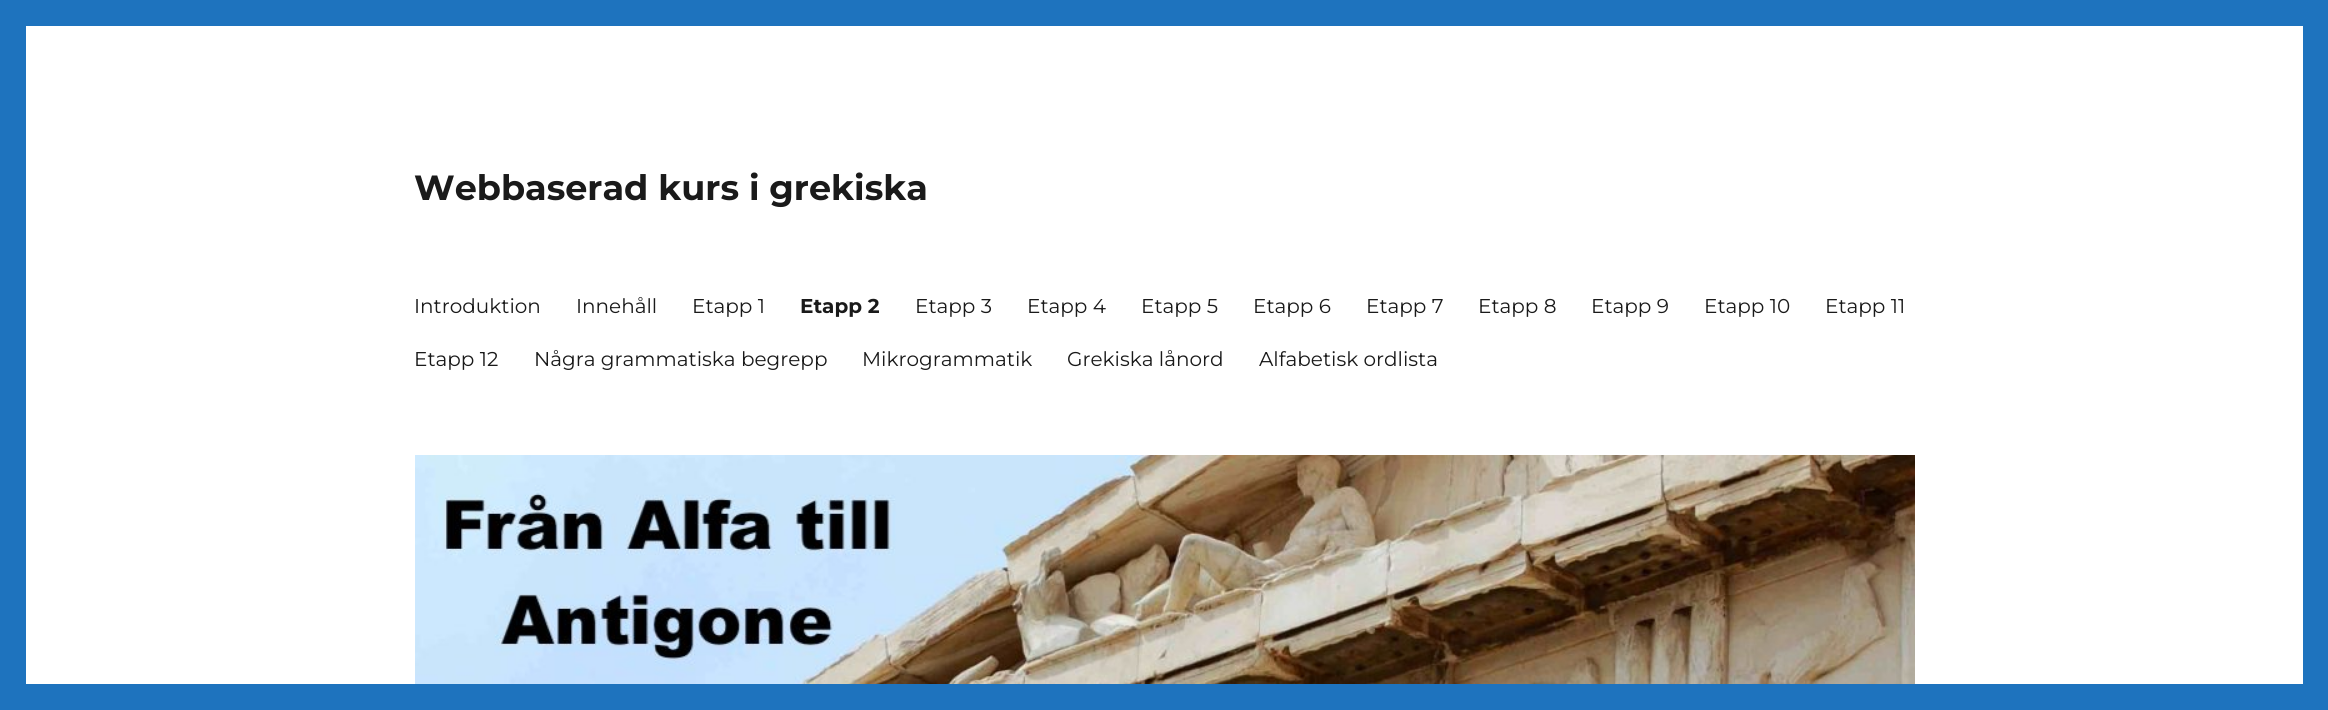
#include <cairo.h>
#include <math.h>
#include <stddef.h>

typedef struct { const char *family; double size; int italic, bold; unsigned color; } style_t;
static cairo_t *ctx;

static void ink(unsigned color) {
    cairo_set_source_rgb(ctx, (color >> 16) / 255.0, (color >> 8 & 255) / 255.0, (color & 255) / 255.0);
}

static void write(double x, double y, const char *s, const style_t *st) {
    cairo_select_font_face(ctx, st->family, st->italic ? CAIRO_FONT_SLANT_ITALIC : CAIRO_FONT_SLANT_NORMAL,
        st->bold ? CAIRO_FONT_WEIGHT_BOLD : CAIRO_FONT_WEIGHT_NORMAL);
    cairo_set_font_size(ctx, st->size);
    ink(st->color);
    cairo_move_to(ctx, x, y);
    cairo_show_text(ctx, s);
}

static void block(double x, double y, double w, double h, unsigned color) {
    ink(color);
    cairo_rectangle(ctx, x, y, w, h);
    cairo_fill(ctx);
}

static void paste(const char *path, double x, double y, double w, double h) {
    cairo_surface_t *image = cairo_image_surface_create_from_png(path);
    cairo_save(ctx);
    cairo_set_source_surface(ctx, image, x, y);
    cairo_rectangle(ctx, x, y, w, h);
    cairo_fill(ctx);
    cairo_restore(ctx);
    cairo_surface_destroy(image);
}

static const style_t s1 = {"Montserrat Thin", 35, 0, 0, 0x1a1a1a};
static const style_t s2 = {"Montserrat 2 Thin", 20, 0, 0, 0x1a1a1a};
static const style_t s3 = {"Montserrat Thin", 20, 0, 0, 0x1a1a1a};

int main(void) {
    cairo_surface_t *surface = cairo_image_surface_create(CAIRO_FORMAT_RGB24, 2328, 710);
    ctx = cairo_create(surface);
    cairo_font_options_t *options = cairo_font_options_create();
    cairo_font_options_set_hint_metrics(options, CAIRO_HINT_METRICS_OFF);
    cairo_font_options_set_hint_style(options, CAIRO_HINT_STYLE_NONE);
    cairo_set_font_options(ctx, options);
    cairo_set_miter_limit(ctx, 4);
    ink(0x1e73be);
    cairo_paint(ctx);
    block(26, 26, 2277, 658, 0xffffff);
    write(414, 200, "Webbaserad kurs i grekiska", &s1);
    write(414, 313, "Introduktion", &s2);
    write(576, 313, "Innehåll", &s2);
    write(692, 313, "Etapp 1", &s2);
    write(800, 313, "Etapp 2", &s3);
    write(915, 313, "Etapp 3", &s2);
    write(1027, 313, "Etapp 4", &s2);
    write(1141, 313, "Etapp 5", &s2);
    write(1253, 313, "Etapp 6", &s2);
    write(1366, 313, "Etapp 7", &s2);
    write(1478, 313, "Etapp 8", &s2);
    write(1591, 313, "Etapp 9", &s2);
    write(1704, 313, "Etapp 10", &s2);
    write(1825, 313, "Etapp 11", &s2);
    write(414, 366, "Etapp 12", &s2);
    write(534, 366, "Några grammatiska begrepp", &s2);
    write(862, 366, "Mikrogrammatik", &s2);
    write(1067, 366, "Grekiska lånord", &s2);
    write(1259, 366, "Alfabetisk ordlista", &s2);
    paste("pic1.png", 415, 455, 1500, 229);
    cairo_surface_write_to_png(surface, "screenshot.png");
    cairo_font_options_destroy(options);
    cairo_destroy(ctx);
    cairo_surface_destroy(surface);
    return 0;
}
